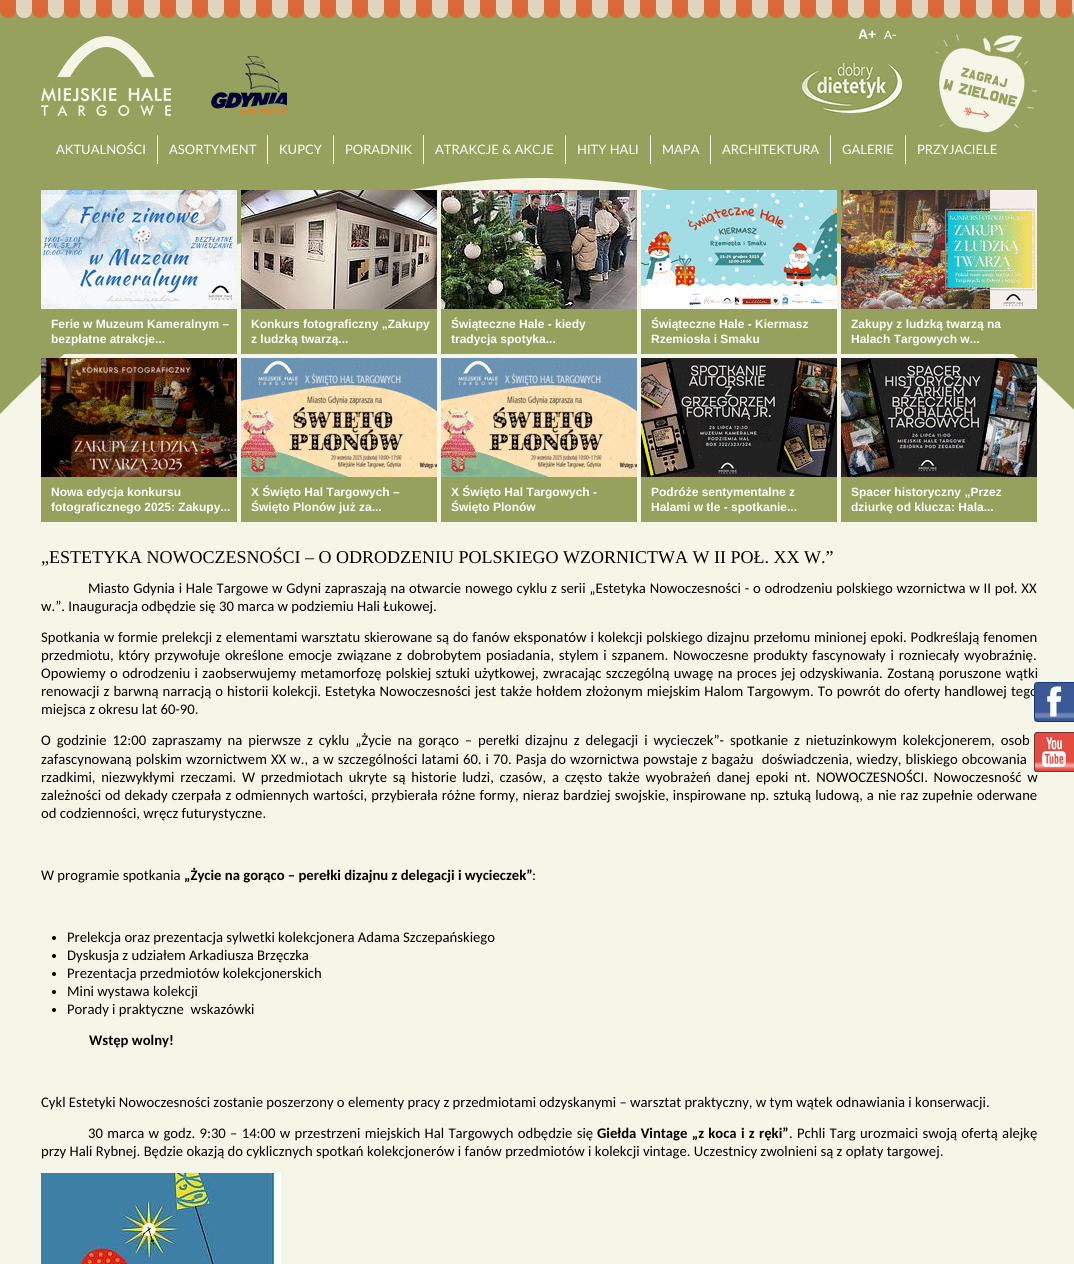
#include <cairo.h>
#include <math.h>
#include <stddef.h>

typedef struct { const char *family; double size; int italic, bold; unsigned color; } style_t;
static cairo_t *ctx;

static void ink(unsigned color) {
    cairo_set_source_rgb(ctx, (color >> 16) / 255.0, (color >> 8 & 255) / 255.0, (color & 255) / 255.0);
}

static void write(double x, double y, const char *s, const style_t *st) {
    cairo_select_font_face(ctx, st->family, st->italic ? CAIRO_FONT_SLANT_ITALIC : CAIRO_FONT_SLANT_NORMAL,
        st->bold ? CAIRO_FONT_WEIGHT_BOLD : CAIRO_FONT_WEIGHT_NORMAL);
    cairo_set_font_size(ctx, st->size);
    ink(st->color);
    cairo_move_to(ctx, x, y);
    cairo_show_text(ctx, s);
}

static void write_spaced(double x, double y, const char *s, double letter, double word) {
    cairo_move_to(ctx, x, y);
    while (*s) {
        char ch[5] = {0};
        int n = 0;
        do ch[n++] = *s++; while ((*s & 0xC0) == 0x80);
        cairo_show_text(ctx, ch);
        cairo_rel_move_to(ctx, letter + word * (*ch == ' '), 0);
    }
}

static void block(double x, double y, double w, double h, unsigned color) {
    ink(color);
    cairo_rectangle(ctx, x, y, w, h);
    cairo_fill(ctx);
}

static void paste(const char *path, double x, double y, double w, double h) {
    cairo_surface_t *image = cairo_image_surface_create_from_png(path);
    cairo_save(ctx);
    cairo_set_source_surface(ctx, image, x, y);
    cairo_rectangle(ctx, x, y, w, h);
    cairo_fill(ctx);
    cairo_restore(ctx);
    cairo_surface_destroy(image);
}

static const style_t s1 = {"Liberation Sans", 14, 0, 1, 0xffffff};
static const style_t s2 = {"Liberation Sans", 12, 0, 0, 0xffffff};
static const style_t s3 = {"Liberation Sans", 14, 0, 0, 0xffffff};
static const style_t s4 = {"Lato", 13, 0, 0, 0xffffff};
static const style_t s5 = {"Liberation Sans", 12, 0, 1, 0xffffff};
static const style_t s6 = {"Liberation Serif", 18, 0, 0, 0x000000};
static const style_t s7 = {"Carlito", 14.67, 0, 0, 0x000000};
static const style_t s8 = {"Carlito", 14.67, 0, 1, 0x000000};

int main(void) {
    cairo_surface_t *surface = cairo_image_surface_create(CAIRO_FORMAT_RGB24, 1074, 1264);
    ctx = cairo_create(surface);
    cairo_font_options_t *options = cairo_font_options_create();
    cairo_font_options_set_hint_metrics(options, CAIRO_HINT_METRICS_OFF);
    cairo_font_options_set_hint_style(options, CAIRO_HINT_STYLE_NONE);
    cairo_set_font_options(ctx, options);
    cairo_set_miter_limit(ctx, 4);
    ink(0xf5f6e8);
    cairo_paint(ctx);
    block(0, 10, 1074, 168, 0x96a15d);
    paste("pic1.png", 0, 178, 1074, 476);
    paste("pic2.png", 0, 0, 1074, 18);
    paste("pic3.png", 41, 36, 130, 80);
    paste("pic4.png", 211, 56, 76, 60);
    write(858, 39, "A+", &s1);
    write(884, 39, "A", &s2);
    write(892, 39, "-", &s3);
    paste("pic5.png", 935, 34, 102, 99);
    paste("pic6.png", 802, 63, 100, 50);
    block(157, 135, 1, 29, 0xffffff);
    write(56, 154, "AKTUALNOŚCI", &s4);
    block(267, 135, 1, 29, 0xffffff);
    write(169, 154, "ASORTYMENT", &s4);
    block(333, 135, 1, 29, 0xffffff);
    write(279, 154, "KUPCY", &s4);
    block(423, 135, 1, 29, 0xffffff);
    write(345, 154, "PORADNIK", &s4);
    block(565, 135, 1, 29, 0xffffff);
    write(435, 154, "ATRAKCJE & AKCJE", &s4);
    block(650, 135, 1, 29, 0xffffff);
    write(577, 154, "HITY HALI", &s4);
    block(710, 135, 1, 29, 0xffffff);
    write(662, 154, "MAPA", &s4);
    block(830, 135, 1, 29, 0xffffff);
    write(722, 154, "ARCHITEKTURA", &s4);
    block(905, 135, 1, 29, 0xffffff);
    write(842, 154, "GALERIE", &s4);
    write(917, 154, "PRZYJACIELE", &s4);
    paste("pic7.png", 41, 190, 196, 119);
    block(55, 309, 182, 45, 0x96a15d);
    write(51, 328, "Ferie w Muzeum Kameralnym –", &s5);
    write(51, 343, "bezpłatne atrakcje...", &s5);
    paste("pic8.png", 241, 190, 196, 119);
    block(241, 309, 196, 45, 0x96a15d);
    write(251, 328, "Konkurs fotograficzny „Zakupy", &s5);
    write(251, 343, "z ludzką twarzą...", &s5);
    paste("pic9.png", 441, 190, 196, 119);
    block(441, 309, 196, 45, 0x96a15d);
    write(451, 328, "Świąteczne Hale - kiedy", &s5);
    write(451, 343, "tradycja spotyka...", &s5);
    paste("pic10.png", 641, 190, 196, 119);
    block(641, 309, 196, 45, 0x96a15d);
    write(651, 328, "Świąteczne Hale - Kiermasz", &s5);
    write(651, 343, "Rzemiosła i Smaku", &s5);
    paste("pic11.png", 841, 190, 196, 119);
    block(841, 309, 182, 45, 0x96a15d);
    write(851, 328, "Zakupy z ludzką twarzą na", &s5);
    write(851, 343, "Halach Targowych w...", &s5);
    paste("pic12.png", 41, 358, 196, 119);
    block(41, 477, 196, 45, 0x96a15d);
    write(51, 496, "Nowa edycja konkursu", &s5);
    write(51, 511, "fotograficznego 2025: Zakupy...", &s5);
    paste("pic13.png", 241, 358, 196, 119);
    block(241, 477, 196, 45, 0x96a15d);
    write(251, 496, "X Święto Hal Targowych –", &s5);
    write(251, 511, "Święto Plonów już za...", &s5);
    paste("pic13.png", 441, 358, 196, 119);
    block(441, 477, 196, 45, 0x96a15d);
    write(451, 496, "X Święto Hal Targowych -", &s5);
    write(451, 511, "Święto Plonów", &s5);
    paste("pic14.png", 641, 358, 196, 119);
    block(641, 477, 196, 45, 0x96a15d);
    write(651, 496, "Podróże sentymentalne z", &s5);
    write(651, 511, "Halami w tle - spotkanie...", &s5);
    paste("pic15.png", 841, 358, 196, 119);
    block(841, 477, 196, 45, 0x96a15d);
    write(851, 496, "Spacer historyczny „Przez", &s5);
    write(851, 511, "dziurkę od klucza: Hala...", &s5);
    write(41, 563, "„ESTETYKA NOWOCZESNOŚCI – O ODRODZENIU POLSKIEGO WZORNICTWA W II POŁ. XX W.”", &s6);
    cairo_select_font_face(ctx, "Carlito", CAIRO_FONT_SLANT_NORMAL, CAIRO_FONT_WEIGHT_NORMAL);
    cairo_set_font_size(ctx, 14.67);
    write_spaced(88, 593, "Miasto Gdynia i Hale Targowe w Gdyni zapraszają na otwarcie nowego cyklu z serii „Estetyka Nowoczesności - o odrodzeniu polskiego wzornictwa w II poł. XX", 0, 0.5);
    write(41, 611, "w.”. Inauguracja odbędzie się 30 marca w podziemiu Hali Łukowej.", &s7);
    write_spaced(41, 642, "Spotkania w formie prelekcji z elementami warsztatu skierowane są do fanów eksponatów i kolekcji polskiego dizajnu przełomu minionej epoki. Podkreślają fenomen", 0, 0.55);
    write_spaced(41, 660, "przedmiotu, który przywołuje określone emocje związane z dobrobytem posiadania, stylem i szpanem. Nowoczesne produkty fascynowały i rozniecały wyobraźnię.", 0, 1.5);
    write_spaced(41, 678, "Opowiemy o odrodzeniu i zaobserwujemy metamorfozę polskiej sztuki użytkowej, zwracając szczególną uwagę na proces jej odzyskiwania. Zostaną poruszone wątki", 0, 1.1);
    write_spaced(41, 696, "renowacji z barwną narracją o historii kolekcji. Estetyka Nowoczesności jest także hołdem złożonym miejskim Halom Targowym. To powrót do oferty handlowej tego", 0, 0.75);
    write(41, 714, "miejsca z okresu lat 60-90.", &s7);
    write_spaced(41, 745, "O godzinie 12:00 zapraszamy na pierwsze z cyklu „Życie na gorąco – perełki dizajnu z delegacji i wycieczek”- spotkanie z nietuzinkowym kolekcjonerem, osob", 0, 2.6);
    write_spaced(41, 764, "zafascynowaną polskim wzornictwem XX w., a w szczególności latami 60. i 70. Pasja do wzornictwa powstaje z bagażu  doświadczenia, wiedzy, bliskiego obcowania", 0, 0.75);
    write_spaced(41, 782, "rzadkimi, niezwykłymi rzeczami. W przedmiotach ukryte są historie ludzi, czasów, a często także wyobrażeń danej epoki nt. NOWOCZESNOŚCI. Nowoczesność w", 0, 2.4);
    write_spaced(41, 800, "zależności od dekady czerpała z odmiennych wartości, przybierała różne formy, nieraz bardziej swojskie, inspirowane np. sztuką ludową, a nie raz zupełnie oderwane", 0, 0.7);
    write(41, 818, "od codzienności, wręcz futurystyczne.", &s7);
    write(41, 880, "W programie spotkania", &s7);
    write(184, 880, "„Życie na gorąco – perełki dizajnu z delegacji i wycieczek”", &s8);
    write(532, 880, ":", &s7);
    cairo_new_path(ctx);
    cairo_arc(ctx, 54, 938, 2, 0, 2 * M_PI);
    cairo_fill(ctx);
    write(67, 942, "Prelekcja oraz prezentacja sylwetki kolekcjonera Adama Szczepańskiego", &s7);
    cairo_new_path(ctx);
    cairo_arc(ctx, 54, 956, 2, 0, 2 * M_PI);
    cairo_fill(ctx);
    write(67, 960, "Dyskusja z udziałem Arkadiusza Brzęczka", &s7);
    cairo_new_path(ctx);
    cairo_arc(ctx, 54, 974, 2, 0, 2 * M_PI);
    cairo_fill(ctx);
    write(67, 978, "Prezentacja przedmiotów kolekcjonerskich", &s7);
    cairo_new_path(ctx);
    cairo_arc(ctx, 54, 992, 2, 0, 2 * M_PI);
    cairo_fill(ctx);
    write(67, 996, "Mini wystawa kolekcji", &s7);
    cairo_new_path(ctx);
    cairo_arc(ctx, 54, 1010, 2, 0, 2 * M_PI);
    cairo_fill(ctx);
    write(67, 1014, "Porady i praktyczne  wskazówki", &s7);
    write(89, 1045, "Wstęp wolny!", &s8);
    write(41, 1107, "Cykl Estetyki Nowoczesności zostanie poszerzony o elementy pracy z przedmiotami odzyskanymi – warsztat praktyczny, w tym wątek odnawiania i konserwacji.", &s7);
    write_spaced(88, 1138, "30 marca w godz. 9:30 – 14:00 w przestrzeni miejskich Hal Targowych odbędzie się", 0, 1);
    cairo_select_font_face(ctx, "Carlito", CAIRO_FONT_SLANT_NORMAL, CAIRO_FONT_WEIGHT_BOLD);
    write_spaced(597, 1138, "Giełda Vintage „z koca i z ręki”", 0, 1);
    cairo_select_font_face(ctx, "Carlito", CAIRO_FONT_SLANT_NORMAL, CAIRO_FONT_WEIGHT_NORMAL);
    write_spaced(789, 1138, ". Pchli Targ urozmaici swoją ofertą alejkę", 0, 1);
    write(41, 1156, "przy Hali Rybnej. Będzie okazją do cyklicznych spotkań kolekcjonerów i fanów przedmiotów i kolekcji vintage. Uczestnicy zwolnieni są z opłaty targowej.", &s7);
    paste("pic16.png", 41, 1173, 240, 91);
    paste("pic17.png", 1034, 682, 40, 40);
    paste("pic18.png", 1034, 732, 40, 40);
    cairo_surface_write_to_png(surface, "screenshot.png");
    cairo_font_options_destroy(options);
    cairo_destroy(ctx);
    cairo_surface_destroy(surface);
    return 0;
}
